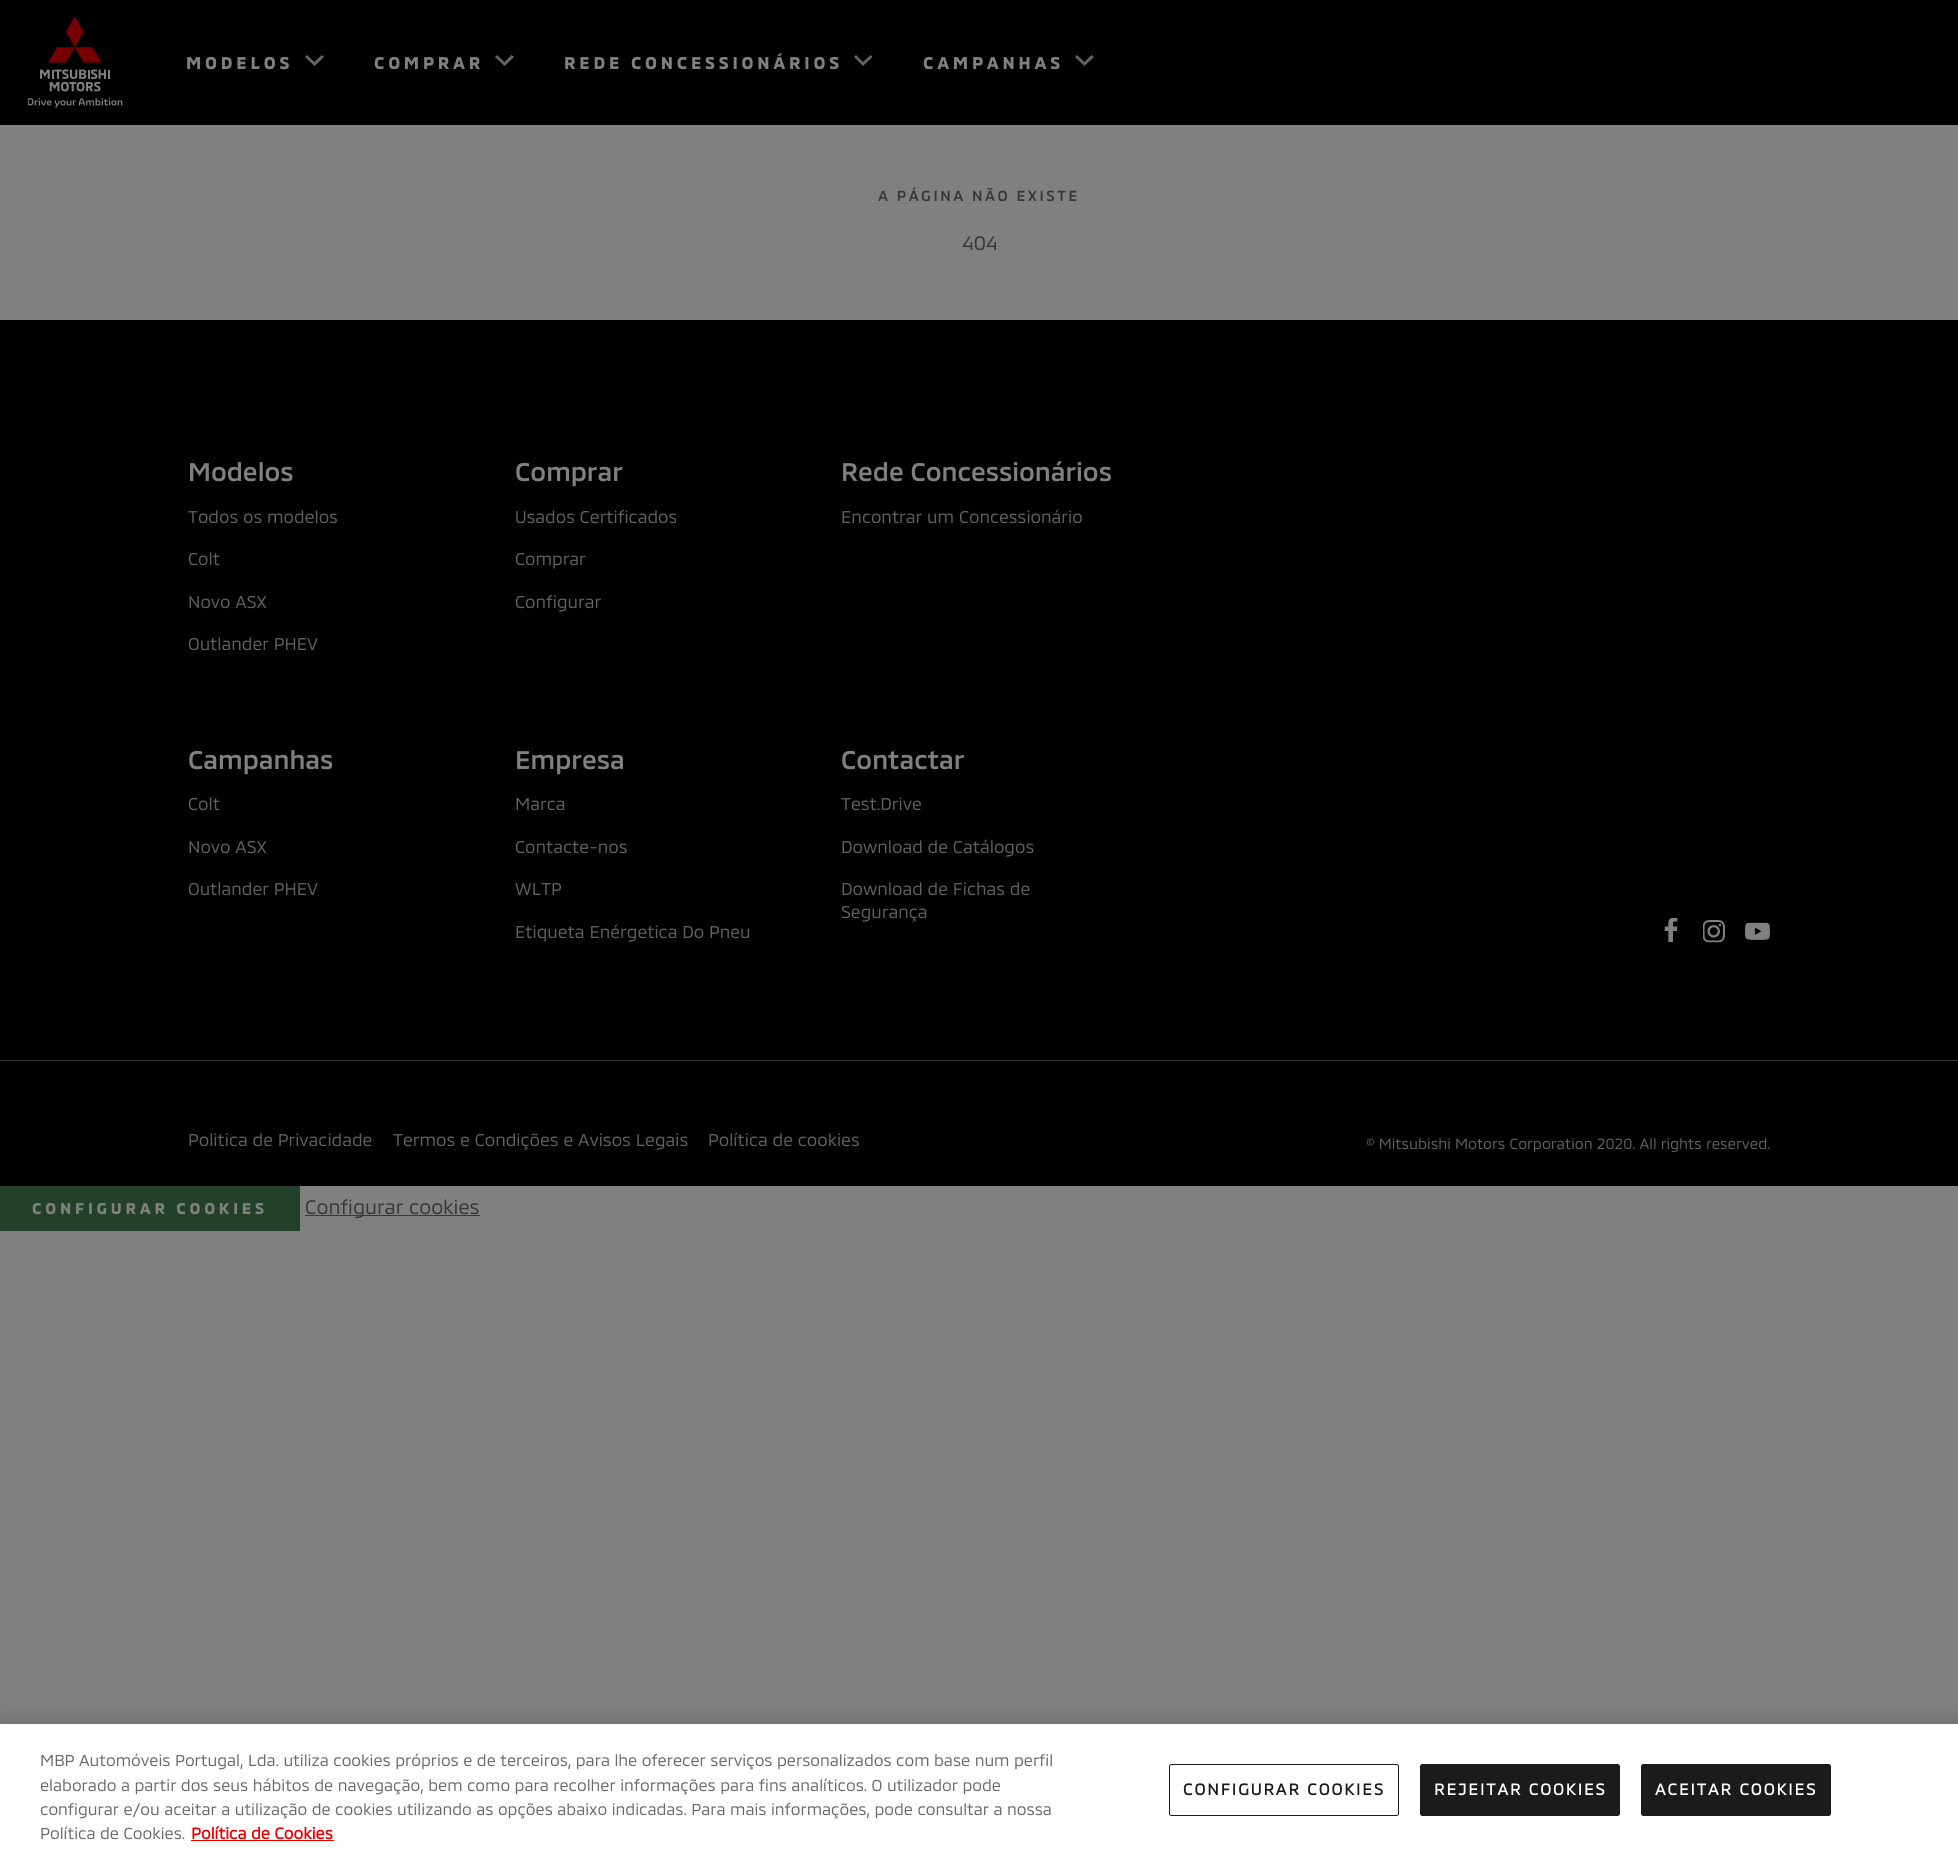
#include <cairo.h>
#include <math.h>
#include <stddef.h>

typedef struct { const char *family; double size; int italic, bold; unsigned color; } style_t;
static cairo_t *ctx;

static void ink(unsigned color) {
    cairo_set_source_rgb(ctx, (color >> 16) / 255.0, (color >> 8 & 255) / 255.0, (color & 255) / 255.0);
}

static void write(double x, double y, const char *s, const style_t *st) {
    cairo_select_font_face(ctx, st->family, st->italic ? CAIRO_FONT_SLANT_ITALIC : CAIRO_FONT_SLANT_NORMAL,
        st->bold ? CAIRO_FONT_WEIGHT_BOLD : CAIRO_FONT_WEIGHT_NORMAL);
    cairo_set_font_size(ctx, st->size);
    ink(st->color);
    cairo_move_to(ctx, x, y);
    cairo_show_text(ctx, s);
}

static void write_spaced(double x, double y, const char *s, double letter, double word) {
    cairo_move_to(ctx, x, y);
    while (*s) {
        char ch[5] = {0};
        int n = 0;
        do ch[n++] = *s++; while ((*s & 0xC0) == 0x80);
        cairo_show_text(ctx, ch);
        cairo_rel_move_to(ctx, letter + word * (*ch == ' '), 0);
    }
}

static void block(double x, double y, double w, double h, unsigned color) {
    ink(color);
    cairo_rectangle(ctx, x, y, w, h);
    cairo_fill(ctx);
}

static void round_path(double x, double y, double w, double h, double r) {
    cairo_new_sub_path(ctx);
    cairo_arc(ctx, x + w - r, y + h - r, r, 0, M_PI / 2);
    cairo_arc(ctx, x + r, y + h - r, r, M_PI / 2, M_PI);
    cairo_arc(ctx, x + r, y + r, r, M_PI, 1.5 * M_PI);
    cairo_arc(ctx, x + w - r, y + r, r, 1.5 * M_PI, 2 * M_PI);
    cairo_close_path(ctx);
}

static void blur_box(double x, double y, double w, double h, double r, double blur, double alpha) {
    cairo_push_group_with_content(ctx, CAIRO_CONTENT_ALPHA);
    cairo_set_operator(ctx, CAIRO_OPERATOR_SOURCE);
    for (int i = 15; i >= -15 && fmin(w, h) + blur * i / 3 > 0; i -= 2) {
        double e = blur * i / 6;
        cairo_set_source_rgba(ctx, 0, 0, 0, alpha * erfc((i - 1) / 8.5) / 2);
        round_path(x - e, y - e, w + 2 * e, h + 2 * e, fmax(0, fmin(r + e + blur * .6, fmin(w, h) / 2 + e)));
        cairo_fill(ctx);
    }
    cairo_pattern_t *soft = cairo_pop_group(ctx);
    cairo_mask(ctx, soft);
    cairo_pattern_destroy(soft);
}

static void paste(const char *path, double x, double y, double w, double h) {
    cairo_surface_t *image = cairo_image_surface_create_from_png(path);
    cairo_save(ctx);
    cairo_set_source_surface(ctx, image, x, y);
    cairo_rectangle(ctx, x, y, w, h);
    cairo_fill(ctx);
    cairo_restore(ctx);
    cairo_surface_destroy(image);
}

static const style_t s1 = {"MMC", 20, 0, 0, 0x343739};
static const style_t s2 = {"MMC Medium", 26.25, 0, 0, 0x808080};
static const style_t s3 = {"MMC", 17.5, 0, 0, 0x606162};
static const style_t s4 = {"MMC", 15, 0, 0, 0x606162};
static const style_t s5 = {"MMC", 16.25, 0, 0, 0x696969};
static const style_t s6 = {"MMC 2", 16.25, 0, 1, 0xed0000};

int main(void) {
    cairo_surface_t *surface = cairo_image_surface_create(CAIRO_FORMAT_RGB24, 1958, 1858);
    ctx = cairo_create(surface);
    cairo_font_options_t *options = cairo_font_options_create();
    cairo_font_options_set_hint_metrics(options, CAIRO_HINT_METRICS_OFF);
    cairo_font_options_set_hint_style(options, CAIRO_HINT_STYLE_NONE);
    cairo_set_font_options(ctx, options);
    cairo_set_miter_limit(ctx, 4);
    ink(0x808080);
    cairo_paint(ctx);
    block(0, 0, 1958, 125, 0x000000);
    paste("pic1.png", 28, 16, 95, 92);
    cairo_select_font_face(ctx, "MMC", CAIRO_FONT_SLANT_NORMAL, CAIRO_FONT_WEIGHT_BOLD);
    cairo_set_font_size(ctx, 17.5);
    ink(0x808080);
    write_spaced(186, 69, "MODELOS", 3.75, 0);
    ink(0x646464);
    cairo_set_fill_rule(ctx, CAIRO_FILL_RULE_EVEN_ODD);
    cairo_new_path(ctx);
    cairo_move_to(ctx, 314.5, 62);
    cairo_line_to(ctx, 307, 55);
    cairo_line_to(ctx, 305, 57);
    cairo_line_to(ctx, 314.5, 66);
    cairo_line_to(ctx, 324, 57);
    cairo_line_to(ctx, 321.5, 55);
    cairo_close_path(ctx);
    cairo_fill(ctx);
    ink(0x808080);
    write_spaced(374, 69, "COMPRAR", 3.75, 0);
    ink(0x646464);
    cairo_new_path(ctx);
    cairo_move_to(ctx, 504.5, 62);
    cairo_line_to(ctx, 497, 55);
    cairo_line_to(ctx, 495, 57);
    cairo_line_to(ctx, 504.5, 66);
    cairo_line_to(ctx, 514, 57);
    cairo_line_to(ctx, 511.5, 55);
    cairo_close_path(ctx);
    cairo_fill(ctx);
    ink(0x808080);
    write_spaced(564, 69, "REDE CONCESSIONÁRIOS", 3.75, 0);
    ink(0x646464);
    cairo_new_path(ctx);
    cairo_move_to(ctx, 863, 62);
    cairo_line_to(ctx, 856, 55);
    cairo_line_to(ctx, 854, 57);
    cairo_line_to(ctx, 863, 66);
    cairo_line_to(ctx, 872.5, 57);
    cairo_line_to(ctx, 870.5, 55);
    cairo_close_path(ctx);
    cairo_fill(ctx);
    ink(0x808080);
    write_spaced(923, 69, "CAMPANHAS", 3.75, 0);
    ink(0x646464);
    cairo_new_path(ctx);
    cairo_move_to(ctx, 1084.5, 62);
    cairo_line_to(ctx, 1077, 55);
    cairo_line_to(ctx, 1075, 57);
    cairo_line_to(ctx, 1084.5, 66);
    cairo_line_to(ctx, 1094, 57);
    cairo_line_to(ctx, 1091.5, 55);
    cairo_close_path(ctx);
    cairo_fill(ctx);
    cairo_select_font_face(ctx, "MMC Medium", CAIRO_FONT_SLANT_NORMAL, CAIRO_FONT_WEIGHT_NORMAL);
    cairo_set_font_size(ctx, 15);
    ink(0x343739);
    write_spaced(878, 201, "A PÁGINA NÃO EXISTE", 2.5, 0);
    write(962, 250, "404", &s1);
    block(0, 320, 1958, 866, 0x000000);
    block(0, 1060, 1958, 1, 0x343739);
    write(188, 481, "Modelos", &s2);
    write(188, 523, "Todos os modelos", &s3);
    write(188, 565, "Colt", &s3);
    write(188, 608, "Novo ASX", &s3);
    write(188, 650, "Outlander PHEV", &s3);
    write(515, 481, "Comprar", &s2);
    write(515, 523, "Usados Certificados", &s3);
    write(515, 565, "Comprar", &s3);
    write(515, 608, "Configurar", &s3);
    write(841, 481, "Rede Concessionários", &s2);
    write(841, 523, "Encontrar um Concessionário", &s3);
    write(188, 769, "Campanhas", &s2);
    write(188, 810, "Colt", &s3);
    write(188, 853, "Novo ASX", &s3);
    write(188, 895, "Outlander PHEV", &s3);
    write(515, 769, "Empresa", &s2);
    write(515, 810, "Marca", &s3);
    write(515, 853, "Contacte-nos", &s3);
    write(515, 895, "WLTP", &s3);
    write(515, 938, "Etiqueta Enérgetica Do Pneu", &s3);
    write(841, 769, "Contactar", &s2);
    write(841, 810, "Test.Drive", &s3);
    write(841, 853, "Download de Catálogos", &s3);
    write(841, 895, "Download de Fichas de", &s3);
    write(841, 918, "Segurança", &s3);
    paste("pic2.png", 1664, 918, 14, 25);
    paste("pic3.png", 1703, 920, 22, 23);
    paste("pic4.png", 1745, 922, 25, 18);
    write(188, 1146, "Politica de Privacidade", &s3);
    write(393, 1146, "Termos e Condições e Avisos Legais", &s3);
    write(708, 1146, "Política de cookies", &s3);
    write(1366, 1149, "© Mitsubishi Motors Corporation 2020. All rights reserved.", &s4);
    block(0, 1186, 300, 45, 0x23412a);
    cairo_select_font_face(ctx, "MMC", CAIRO_FONT_SLANT_NORMAL, CAIRO_FONT_WEIGHT_BOLD);
    cairo_set_font_size(ctx, 16);
    ink(0x808080);
    write_spaced(32, 1214, "CONFIGURAR COOKIES", 3.75, 0);
    block(305, 1215, 175, 1, 0x343739);
    write(305, 1214, "Configurar cookies", &s1);
    ink(0x000000);
    blur_box(0, 1724, 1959, 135, 0, 11, 0.2);
    block(0, 1724, 1958, 134, 0xffffff);
    write(40, 1766, "MBP Automóveis Portugal, Lda. utiliza cookies próprios e de terceiros, para lhe oferecer serviços personalizados com base num perfil", &s5);
    write(40, 1791, "elaborado a partir dos seus hábitos de navegação, bem como para recolher informações para fins analíticos. O utilizador pode", &s5);
    write(40, 1815, "configurar e/ou aceitar a utilização de cookies utilizando as opções abaixo indicadas. Para mais informações, pode consultar a nossa", &s5);
    write(40, 1839, "Política de Cookies.", &s5);
    write(191, 1839, "Política de Cookies", &s6);
    block(191, 1840, 143, 1, 0xed0000);
    round_path(1169.5, 1764.5, 229, 51, 2);
    ink(0x1c1b1b);
    cairo_set_line_width(ctx, 1);
    cairo_stroke(ctx);
    write_spaced(1183, 1795, "CONFIGURAR COOKIES", 2, 0);
    round_path(1420.5, 1764.5, 199, 51, 2);
    cairo_fill_preserve(ctx);
    cairo_stroke(ctx);
    ink(0xffffff);
    write_spaced(1434, 1795, "REJEITAR COOKIES", 2, 0);
    ink(0x1c1b1b);
    round_path(1641.5, 1764.5, 189, 51, 2);
    cairo_fill_preserve(ctx);
    cairo_stroke(ctx);
    ink(0xffffff);
    write_spaced(1655, 1795, "ACEITAR COOKIES", 2, 0);
    cairo_surface_write_to_png(surface, "screenshot.png");
    cairo_font_options_destroy(options);
    cairo_destroy(ctx);
    cairo_surface_destroy(surface);
    return 0;
}
